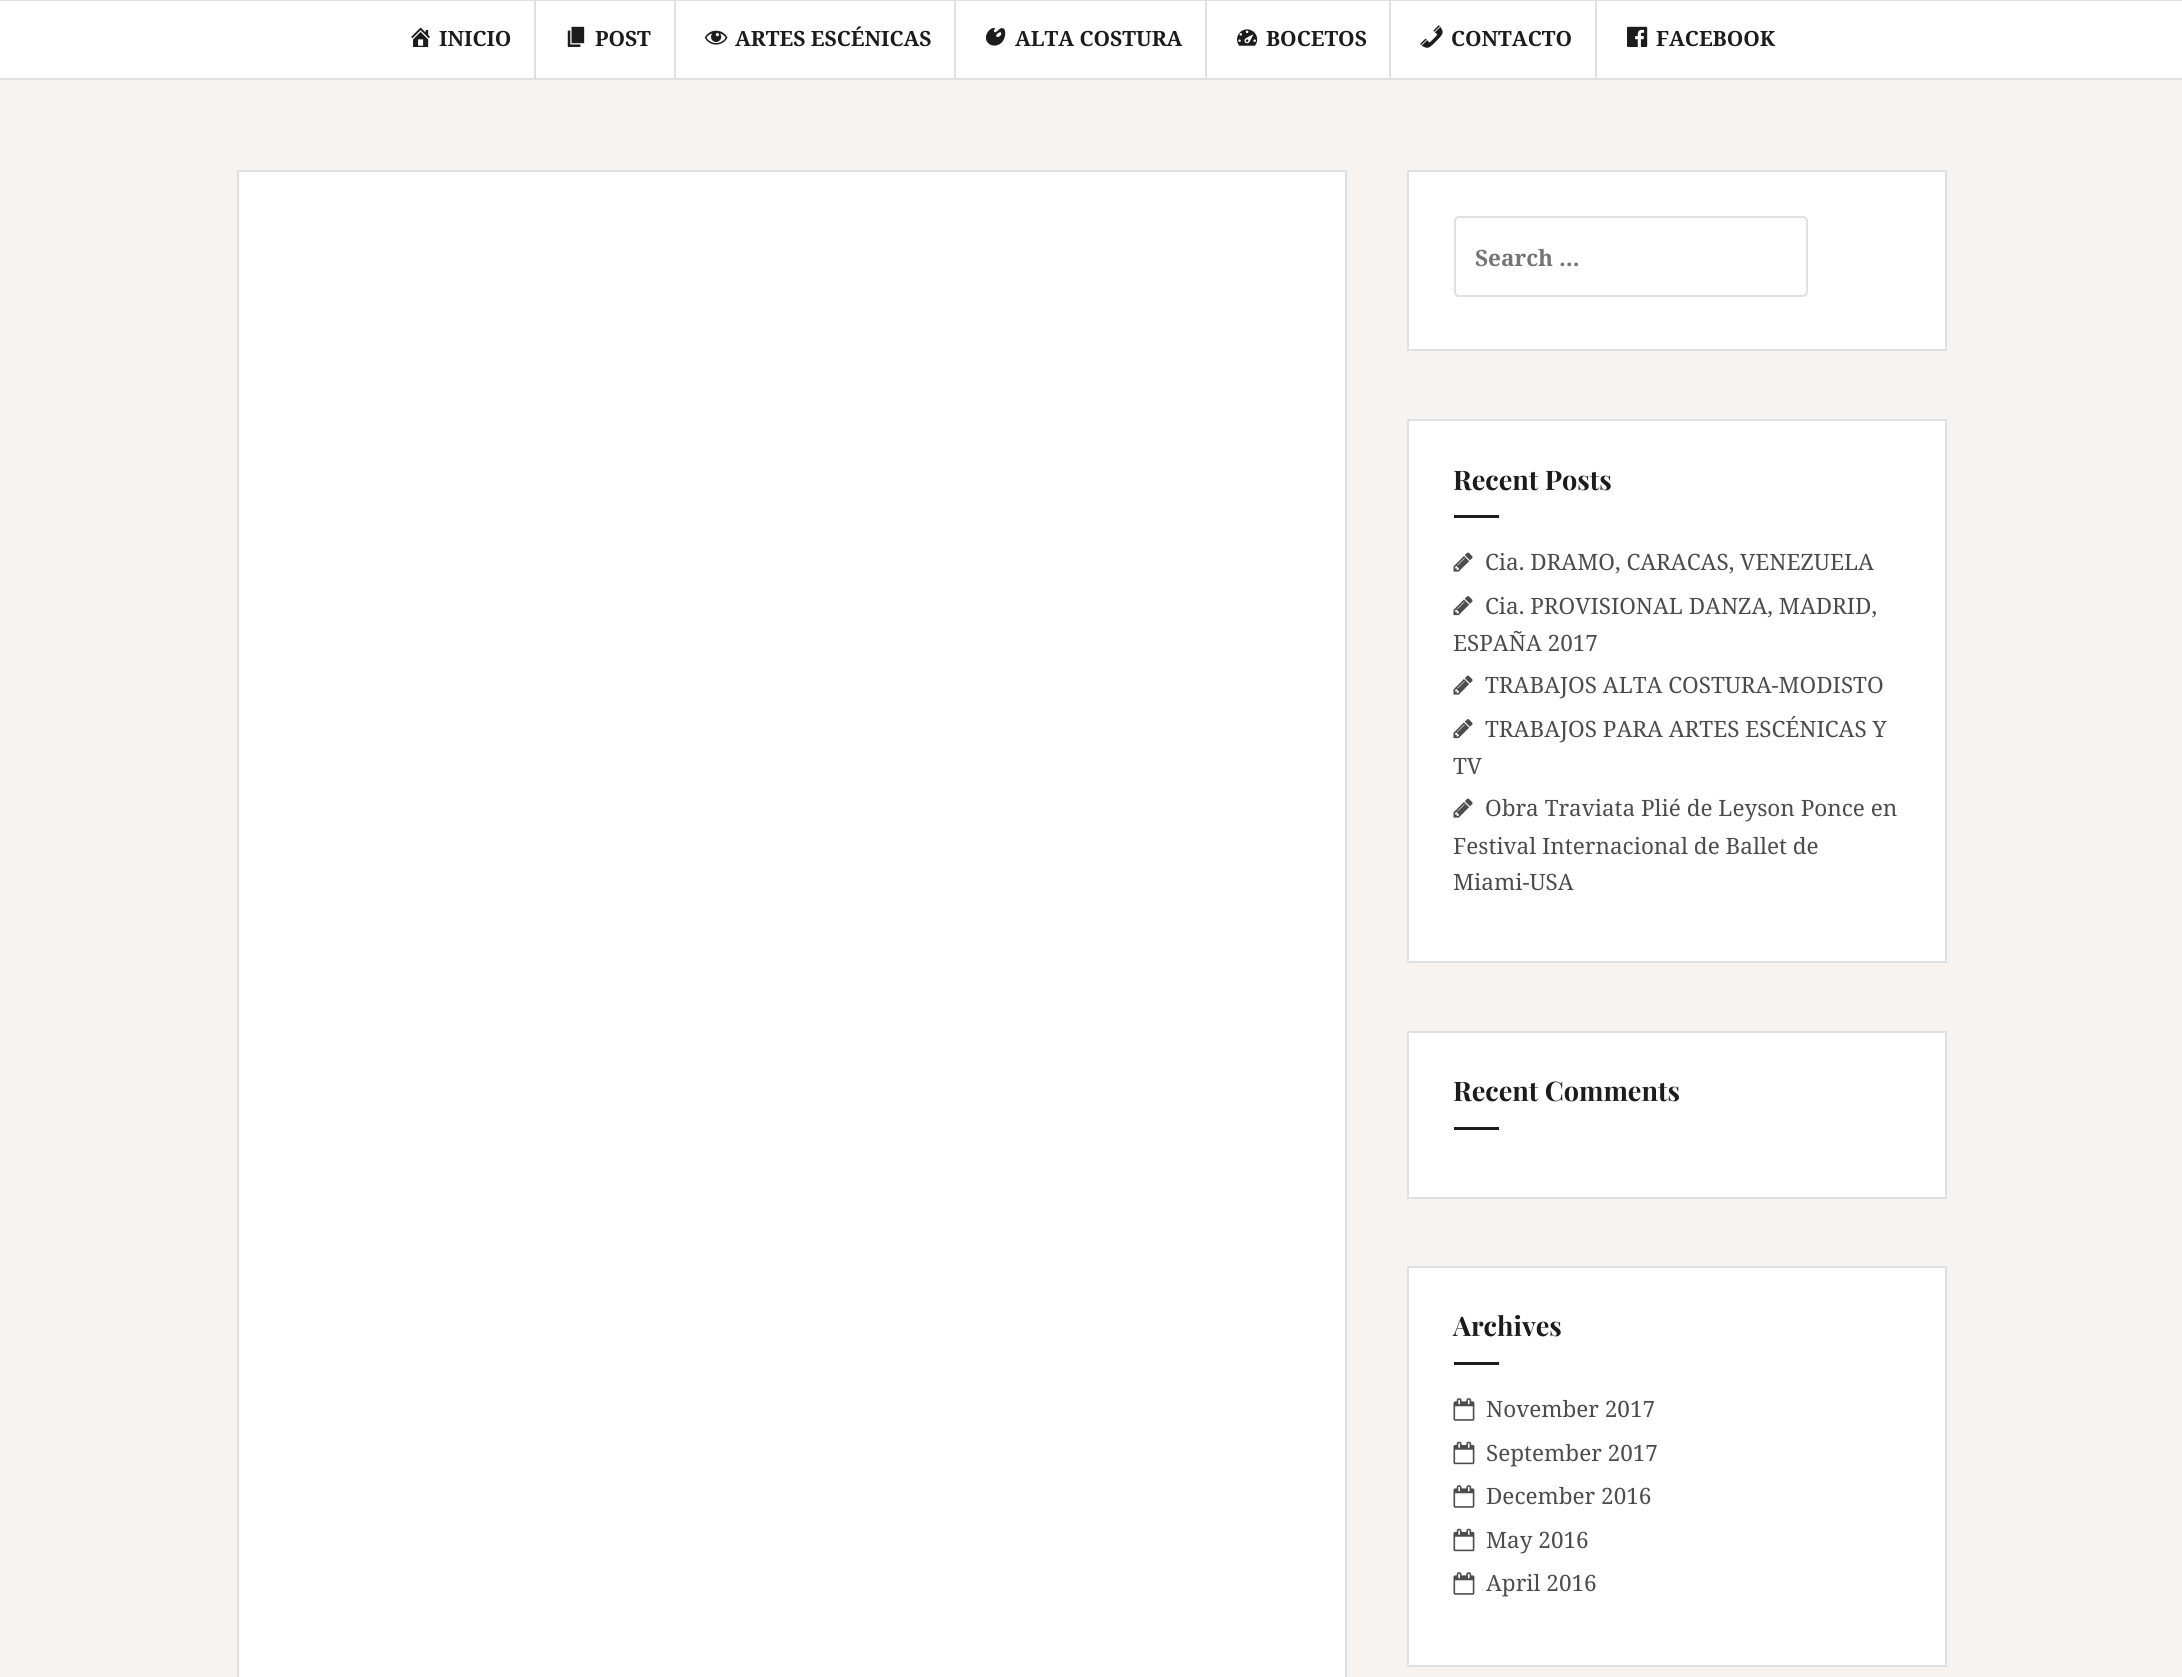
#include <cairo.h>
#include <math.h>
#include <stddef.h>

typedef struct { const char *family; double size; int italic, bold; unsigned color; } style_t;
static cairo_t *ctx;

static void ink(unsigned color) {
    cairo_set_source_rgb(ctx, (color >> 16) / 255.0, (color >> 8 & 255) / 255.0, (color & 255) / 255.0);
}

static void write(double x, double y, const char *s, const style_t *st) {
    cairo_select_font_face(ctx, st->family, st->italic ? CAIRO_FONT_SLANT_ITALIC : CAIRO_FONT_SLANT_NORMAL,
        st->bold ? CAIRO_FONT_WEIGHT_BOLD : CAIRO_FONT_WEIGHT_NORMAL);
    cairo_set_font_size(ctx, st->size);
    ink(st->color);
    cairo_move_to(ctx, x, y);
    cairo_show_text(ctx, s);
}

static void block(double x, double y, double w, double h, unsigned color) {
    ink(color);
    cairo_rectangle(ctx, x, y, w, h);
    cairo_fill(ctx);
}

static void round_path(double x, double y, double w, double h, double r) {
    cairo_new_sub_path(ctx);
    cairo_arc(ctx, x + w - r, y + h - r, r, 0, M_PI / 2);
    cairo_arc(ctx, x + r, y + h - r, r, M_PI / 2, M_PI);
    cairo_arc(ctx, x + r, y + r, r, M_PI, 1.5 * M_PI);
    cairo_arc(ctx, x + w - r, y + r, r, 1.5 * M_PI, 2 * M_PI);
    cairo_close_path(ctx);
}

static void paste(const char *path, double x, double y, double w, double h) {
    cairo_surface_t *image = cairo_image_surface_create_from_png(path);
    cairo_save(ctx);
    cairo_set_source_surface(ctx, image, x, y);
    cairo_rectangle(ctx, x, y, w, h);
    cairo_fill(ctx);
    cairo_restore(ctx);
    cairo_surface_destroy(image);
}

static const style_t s1 = {"Noto Serif", 21, 0, 1, 0x1c1c1c};
static const style_t s2 = {"Noto Serif", 22.5, 0, 1, 0x757575};
static const style_t s3 = {"Playfair Display", 27, 0, 1, 0x1c1c1c};
static const style_t s4 = {"Noto Serif", 22.5, 0, 0, 0x4c4c4c};

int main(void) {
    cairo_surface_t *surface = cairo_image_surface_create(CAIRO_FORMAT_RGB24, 2182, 1677);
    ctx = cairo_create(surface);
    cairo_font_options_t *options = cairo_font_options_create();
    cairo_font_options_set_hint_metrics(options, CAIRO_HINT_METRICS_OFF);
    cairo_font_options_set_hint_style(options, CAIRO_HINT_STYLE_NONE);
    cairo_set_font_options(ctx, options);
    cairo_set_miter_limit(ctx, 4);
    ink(0xf7f3f0);
    cairo_paint(ctx);
    block(0, 1, 2182, 77, 0xffffff);
    block(0, 0, 2182, 1, 0xe0e0e0);
    block(0, 78, 2182, 2, 0xe0e0e0);
    block(534, 0, 2, 78, 0xe0e0e0);
    paste("pic1.png", 411, 27, 19, 20);
    write(439, 46, "INICIO", &s1);
    block(674, 0, 2, 78, 0xe0e0e0);
    paste("pic2.png", 567, 26, 18, 21);
    write(595, 46, "POST", &s1);
    block(954, 0, 2, 78, 0xe0e0e0);
    paste("pic3.png", 704, 30, 24, 15);
    write(735, 46, "ARTES ESCÉNICAS", &s1);
    block(1205, 0, 2, 78, 0xe0e0e0);
    paste("pic4.png", 985, 28, 21, 18);
    write(1015, 46, "ALTA COSTURA", &s1);
    block(1389, 0, 2, 78, 0xe0e0e0);
    paste("pic5.png", 1237, 29, 21, 17);
    write(1266, 46, "BOCETOS", &s1);
    block(1595, 0, 2, 78, 0xe0e0e0);
    paste("pic6.png", 1420, 25, 23, 23);
    write(1451, 46, "CONTACTO", &s1);
    paste("pic7.png", 1627, 26, 21, 21);
    write(1656, 46, "FACEBOOK", &s1);
    ink(0xffffff);
    cairo_rectangle(ctx, 238, 171, 1108, 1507);
    cairo_fill_preserve(ctx);
    ink(0xe0e0e0);
    cairo_stroke(ctx);
    ink(0xffffff);
    cairo_rectangle(ctx, 1408, 171, 538, 179);
    cairo_fill_preserve(ctx);
    ink(0xe0e0e0);
    cairo_stroke(ctx);
    round_path(1455, 217, 352, 79, 4);
    cairo_stroke(ctx);
    write(1475, 266, "Search …", &s2);
    ink(0xffffff);
    cairo_rectangle(ctx, 1408, 420, 538, 542);
    cairo_fill_preserve(ctx);
    ink(0xe0e0e0);
    cairo_stroke(ctx);
    write(1453, 490, "Recent Posts", &s3);
    block(1454, 515, 45, 3, 0x1c1c1c);
    paste("pic8.png", 1453, 552, 20, 20);
    write(1485, 570, "Cia. DRAMO, CARACAS, VENEZUELA", &s4);
    paste("pic9.png", 1453, 596, 20, 20);
    write(1485, 614, "Cia. PROVISIONAL DANZA, MADRID,", &s4);
    write(1453, 651, "ESPAÑA 2017", &s4);
    paste("pic8.png", 1453, 675, 20, 20);
    write(1485, 693, "TRABAJOS ALTA COSTURA-MODISTO", &s4);
    paste("pic9.png", 1453, 719, 20, 20);
    write(1485, 737, "TRABAJOS PARA ARTES ESCÉNICAS Y", &s4);
    write(1453, 774, "TV", &s4);
    paste("pic8.png", 1453, 798, 20, 20);
    write(1485, 816, "Obra Traviata Plié de Leyson Ponce en", &s4);
    write(1453, 854, "Festival Internacional de Ballet de", &s4);
    write(1453, 890, "Miami-USA", &s4);
    ink(0xffffff);
    cairo_rectangle(ctx, 1408, 1032, 538, 166);
    cairo_fill_preserve(ctx);
    ink(0xe0e0e0);
    cairo_stroke(ctx);
    write(1453, 1101, "Recent Comments", &s3);
    block(1454, 1127, 45, 3, 0x1c1c1c);
    ink(0xffffff);
    cairo_rectangle(ctx, 1408, 1267, 538, 399);
    cairo_fill_preserve(ctx);
    ink(0xe0e0e0);
    cairo_stroke(ctx);
    write(1453, 1336, "Archives", &s3);
    block(1454, 1362, 45, 3, 0x1c1c1c);
    paste("pic10.png", 1453, 1398, 22, 23);
    write(1486, 1417, "November 2017", &s4);
    paste("pic11.png", 1453, 1441, 22, 24);
    write(1486, 1461, "September 2017", &s4);
    paste("pic10.png", 1453, 1485, 22, 23);
    write(1486, 1504, "December 2016", &s4);
    paste("pic11.png", 1453, 1528, 22, 24);
    write(1486, 1548, "May 2016", &s4);
    paste("pic10.png", 1453, 1572, 22, 23);
    write(1486, 1591, "April 2016", &s4);
    cairo_surface_write_to_png(surface, "screenshot.png");
    cairo_font_options_destroy(options);
    cairo_destroy(ctx);
    cairo_surface_destroy(surface);
    return 0;
}
